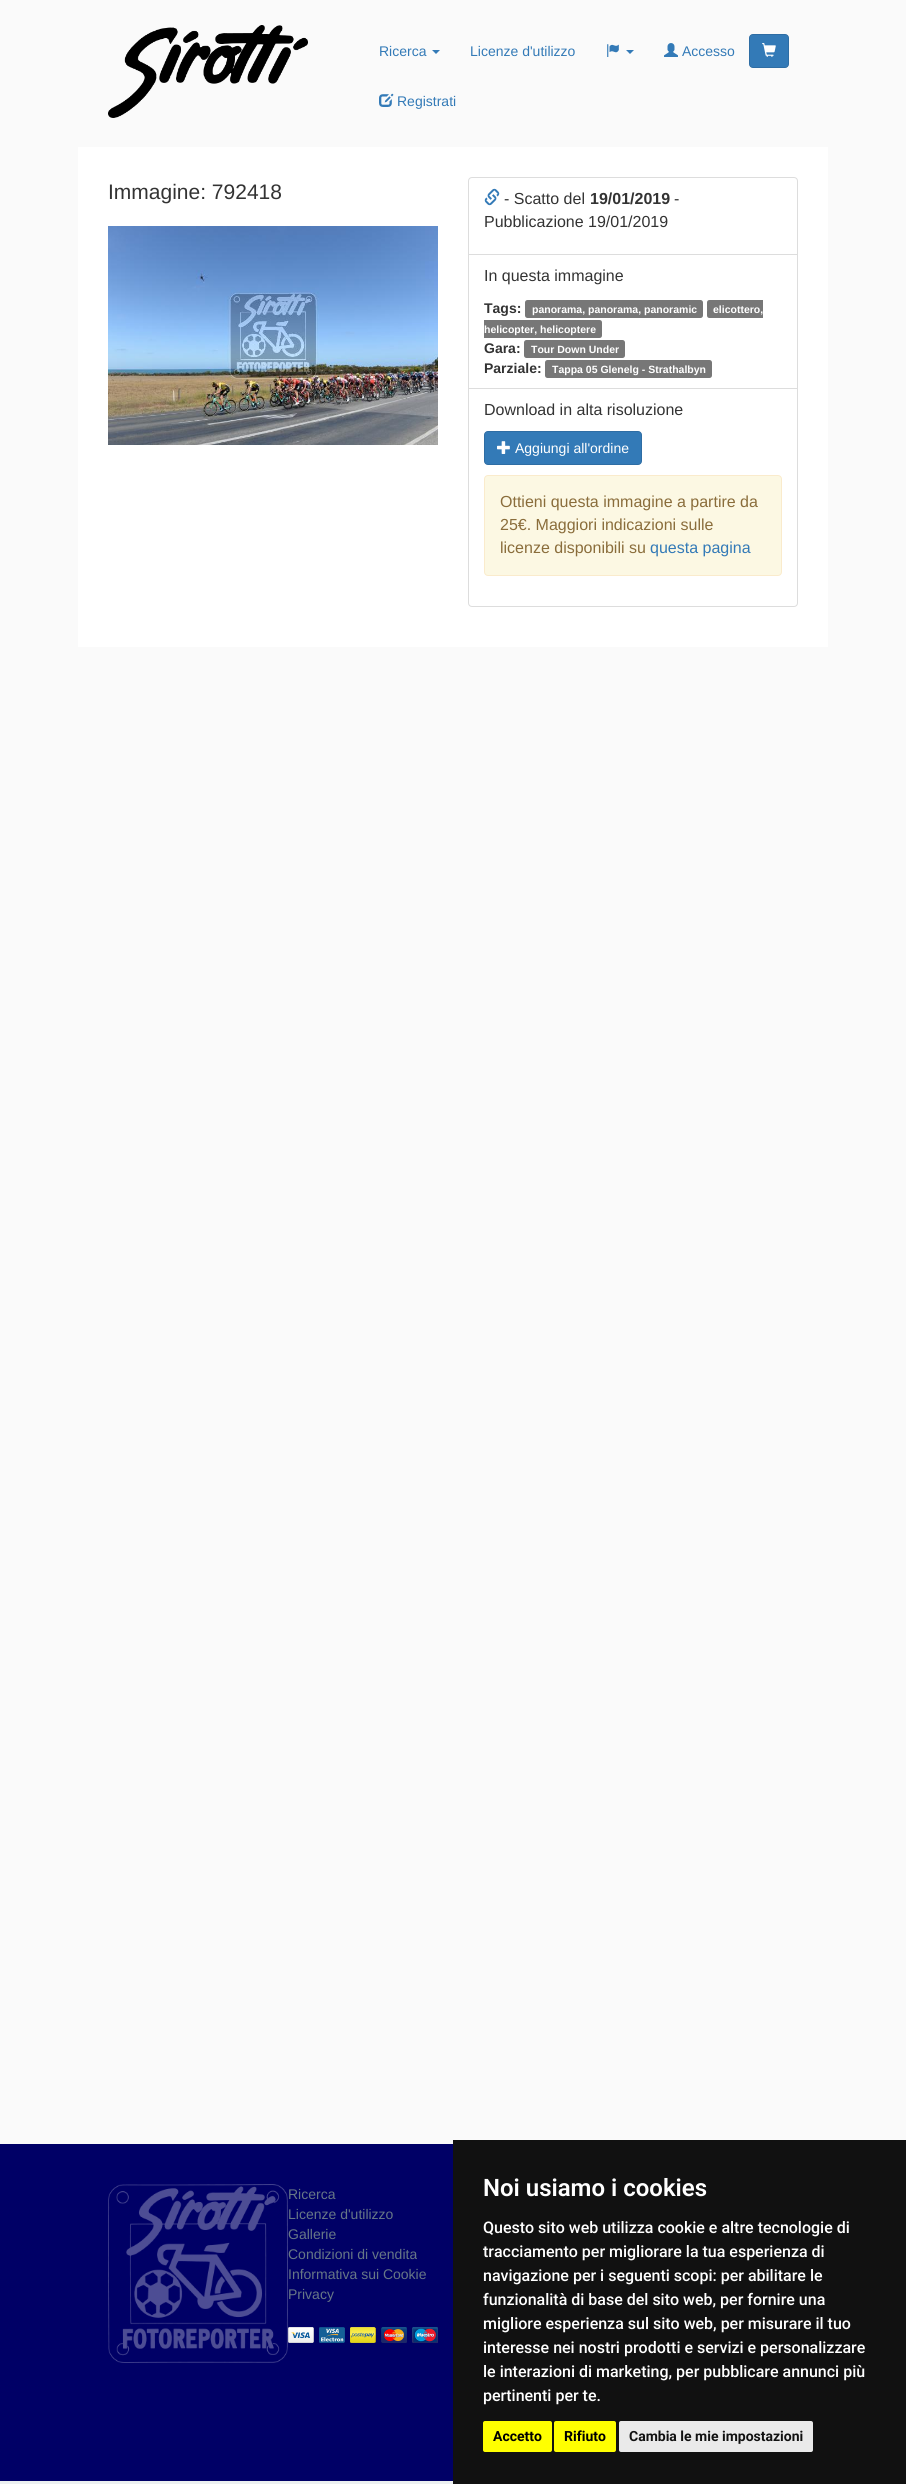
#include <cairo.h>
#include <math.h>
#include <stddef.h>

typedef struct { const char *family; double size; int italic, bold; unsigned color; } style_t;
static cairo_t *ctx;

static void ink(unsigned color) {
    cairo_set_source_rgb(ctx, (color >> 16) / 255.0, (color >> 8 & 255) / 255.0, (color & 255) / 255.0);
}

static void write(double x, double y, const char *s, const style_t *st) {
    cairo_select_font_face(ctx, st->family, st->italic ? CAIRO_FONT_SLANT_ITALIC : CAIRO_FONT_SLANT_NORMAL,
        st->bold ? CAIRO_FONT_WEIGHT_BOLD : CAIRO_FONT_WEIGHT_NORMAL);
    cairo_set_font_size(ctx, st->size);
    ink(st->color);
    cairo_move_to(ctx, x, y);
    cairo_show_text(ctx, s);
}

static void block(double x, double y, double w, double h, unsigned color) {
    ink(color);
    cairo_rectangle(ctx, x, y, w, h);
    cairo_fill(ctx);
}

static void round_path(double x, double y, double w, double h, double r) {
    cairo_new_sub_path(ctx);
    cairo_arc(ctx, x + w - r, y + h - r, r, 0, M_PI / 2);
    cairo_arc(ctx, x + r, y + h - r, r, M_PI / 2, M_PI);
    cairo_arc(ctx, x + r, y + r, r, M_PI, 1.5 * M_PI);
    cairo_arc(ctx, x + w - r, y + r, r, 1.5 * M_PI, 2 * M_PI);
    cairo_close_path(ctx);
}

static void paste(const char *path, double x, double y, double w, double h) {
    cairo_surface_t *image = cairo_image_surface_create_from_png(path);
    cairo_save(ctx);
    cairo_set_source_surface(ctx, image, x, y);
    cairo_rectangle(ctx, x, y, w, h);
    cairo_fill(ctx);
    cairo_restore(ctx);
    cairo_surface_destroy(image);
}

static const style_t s1 = {"Liberation Sans", 14, 0, 0, 0x337ab7};
static const style_t s2 = {"Liberation Sans", 21, 0, 0, 0x333333};
static const style_t s3 = {"Liberation Sans", 16, 0, 0, 0x333333};
static const style_t s4 = {"Liberation Sans", 16, 0, 1, 0x333333};
static const style_t s5 = {"Liberation Sans", 14, 0, 1, 0x333333};
static const style_t s6 = {"Liberation Sans", 10.5, 0, 1, 0xffffff};
static const style_t s7 = {"Liberation Sans", 14, 0, 0, 0xffffff};
static const style_t s8 = {"Liberation Sans", 16, 0, 0, 0x8a6d3b};
static const style_t s9 = {"Liberation Sans", 16, 0, 0, 0x337ab7};
static const style_t s10 = {"Liberation Sans", 14, 0, 0, 0x677786};
static const style_t s11 = {"Roboto SemiBold", 24, 0, 0, 0xffffff};
static const style_t s12 = {"Roboto Medium", 16, 0, 0, 0xffffff};
static const style_t s13 = {"Roboto", 14, 0, 1, 0x000000};
static const style_t s14 = {"Roboto", 14, 0, 1, 0x111111};

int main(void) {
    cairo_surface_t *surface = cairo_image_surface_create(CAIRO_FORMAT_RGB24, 906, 2484);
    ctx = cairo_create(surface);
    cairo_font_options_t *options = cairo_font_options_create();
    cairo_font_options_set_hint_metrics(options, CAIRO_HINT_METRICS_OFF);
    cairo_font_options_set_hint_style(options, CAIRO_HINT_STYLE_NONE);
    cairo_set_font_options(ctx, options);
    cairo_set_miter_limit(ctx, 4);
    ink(0xfafafa);
    cairo_paint(ctx);
    paste("pic1.png", 108, 25, 200, 93);
    write(379, 56, "Ricerca", &s1);
    cairo_new_path(ctx);
    cairo_move_to(ctx, 432, 50);
    cairo_line_to(ctx, 440, 50);
    cairo_line_to(ctx, 436, 54);
    cairo_close_path(ctx);
    cairo_fill(ctx);
    write(470, 56, "Licenze d'utilizzo", &s1);
    paste("pic2.png", 607, 44, 12, 13);
    cairo_new_path(ctx);
    cairo_move_to(ctx, 626, 50);
    cairo_line_to(ctx, 634, 50);
    cairo_line_to(ctx, 630, 54);
    cairo_close_path(ctx);
    cairo_fill(ctx);
    paste("pic3.png", 664, 43, 14, 14);
    write(682, 56, "Accesso", &s1);
    paste("pic4.png", 379, 93, 15, 14);
    write(397, 106, "Registrati", &s1);
    round_path(749.5, 34.5, 39, 33, 3.5);
    cairo_fill_preserve(ctx);
    ink(0x2e6da4);
    cairo_set_line_width(ctx, 1);
    cairo_stroke(ctx);
    paste("pic5.png", 762, 43, 14, 14);
    block(78, 147, 750, 500, 0xffffff);
    write(108, 199, "Immagine: 792418", &s2);
    paste("pic6.png", 108, 226, 330, 219);
    cairo_new_path(ctx);
    cairo_move_to(ctx, 472, 177.5);
    cairo_line_to(ctx, 794, 177.5);
    cairo_curve_to(ctx, 796, 177.5, 797.5, 179, 797.5, 181);
    cairo_line_to(ctx, 797.5, 254.5);
    cairo_line_to(ctx, 468.5, 254.5);
    cairo_line_to(ctx, 468.5, 181);
    cairo_curve_to(ctx, 468.5, 179, 470, 177.5, 472, 177.5);
    cairo_close_path(ctx);
    ink(0xdddddd);
    cairo_stroke(ctx);
    paste("pic7.png", 484, 188, 16, 18);
    write(504, 204, "- Scatto del", &s3);
    write(590, 204, "19/01/2019", &s4);
    write(674, 204, "-", &s3);
    write(484, 227, "Pubblicazione 19/01/2019", &s3);
    cairo_rectangle(ctx, 468.5, 254.5, 329, 134);
    ink(0xdddddd);
    cairo_stroke(ctx);
    write(484, 281, "In questa immagine", &s3);
    write(484, 313, "Tags:", &s5);
    ink(0x777777);
    round_path(525, 300, 178, 18, 2.5);
    cairo_fill(ctx);
    write(532, 313, "panorama, panorama, panoramic", &s6);
    ink(0x777777);
    cairo_new_path(ctx);
    cairo_move_to(ctx, 709.5, 300);
    cairo_line_to(ctx, 763, 300);
    cairo_line_to(ctx, 763, 318);
    cairo_line_to(ctx, 709.5, 318);
    cairo_curve_to(ctx, 708, 318, 707, 317, 707, 315.5);
    cairo_line_to(ctx, 707, 302.5);
    cairo_curve_to(ctx, 707, 301, 708, 300, 709.5, 300);
    cairo_close_path(ctx);
    cairo_fill(ctx);
    write(713, 313, "elicottero,", &s6);
    ink(0x777777);
    cairo_new_path(ctx);
    cairo_move_to(ctx, 484, 320);
    cairo_line_to(ctx, 599.5, 320);
    cairo_curve_to(ctx, 601, 320, 602, 321, 602, 322.5);
    cairo_line_to(ctx, 602, 335.5);
    cairo_curve_to(ctx, 602, 337, 601, 338, 599.5, 338);
    cairo_line_to(ctx, 484, 338);
    cairo_close_path(ctx);
    cairo_fill(ctx);
    write(484, 333, "helicopter, helicoptere", &s6);
    write(484, 353, "Gara:", &s5);
    ink(0x777777);
    round_path(524, 340, 101, 18, 2.5);
    cairo_fill(ctx);
    write(531, 353, "Tour Down Under", &s6);
    write(484, 373, "Parziale:", &s5);
    ink(0x777777);
    round_path(545, 360, 167, 18, 2.5);
    cairo_fill(ctx);
    write(552, 373, "Tappa 05 Glenelg - Strathalbyn", &s6);
    cairo_new_path(ctx);
    cairo_move_to(ctx, 468.5, 388.5);
    cairo_line_to(ctx, 797.5, 388.5);
    cairo_line_to(ctx, 797.5, 603);
    cairo_curve_to(ctx, 797.5, 605, 796, 606.5, 794, 606.5);
    cairo_line_to(ctx, 472, 606.5);
    cairo_curve_to(ctx, 470, 606.5, 468.5, 605, 468.5, 603);
    cairo_close_path(ctx);
    cairo_fill_preserve(ctx);
    ink(0xdddddd);
    cairo_stroke(ctx);
    write(484, 415, "Download in alta risoluzione", &s3);
    ink(0x337ab7);
    round_path(484.5, 431.5, 157, 33, 3.5);
    cairo_fill_preserve(ctx);
    ink(0x2e6da4);
    cairo_stroke(ctx);
    paste("pic8.png", 497, 441, 13, 13);
    write(515, 453, "Aggiungi all'ordine", &s7);
    ink(0xfcf8e3);
    round_path(484.5, 475.5, 297, 100, 3.5);
    cairo_fill_preserve(ctx);
    ink(0xfaebcc);
    cairo_stroke(ctx);
    write(500, 507, "Ottieni questa immagine a partire da", &s8);
    write(500, 530, "25€. Maggiori indicazioni sulle", &s8);
    write(500, 553, "licenze disponibili su", &s8);
    write(650, 553, "questa pagina", &s9);
    block(0, 2144, 453, 337, 0x000066);
    paste("pic9.png", 108, 2184, 180, 179);
    write(288, 2199, "Ricerca", &s10);
    write(288, 2219, "Licenze d'utilizzo", &s10);
    write(288, 2239, "Gallerie", &s10);
    write(288, 2259, "Condizioni di vendita", &s10);
    write(288, 2279, "Informativa sui Cookie", &s10);
    write(288, 2299, "Privacy", &s10);
    paste("pic10.png", 288, 2327, 150, 16);
    block(0, 2481, 453, 3, 0xecf0f1);
    block(453, 2140, 453, 344, 0x111111);
    write(483, 2196, "Noi usiamo i cookies", &s11);
    write(483, 2233, "Questo sito web utilizza cookie e altre tecnologie di", &s12);
    write(483, 2257, "tracciamento per migliorare la tua esperienza di", &s12);
    write(483, 2281, "navigazione per i seguenti scopi: per abilitare le", &s12);
    write(483, 2305, "funzionalità di base del sito web, per fornire una", &s12);
    write(483, 2329, "migliore esperienza sul sito web, per misurare il tuo", &s12);
    write(483, 2353, "interesse nei nostri prodotti e servizi e personalizzare", &s12);
    write(483, 2377, "le interazioni di marketing, per pubblicare annunci più", &s12);
    write(483, 2401, "pertinenti per te.", &s12);
    ink(0xffff00);
    round_path(483, 2421, 69, 31, 2);
    cairo_fill(ctx);
    write(493, 2441, "Accetto", &s13);
    ink(0xffff00);
    round_path(554, 2421, 62, 31, 2);
    cairo_fill(ctx);
    write(564, 2441, "Rifiuto", &s13);
    ink(0xeaeaea);
    round_path(619, 2421, 194, 31, 2);
    cairo_fill(ctx);
    write(629, 2441, "Cambia le mie impostazioni", &s14);
    cairo_surface_write_to_png(surface, "screenshot.png");
    cairo_font_options_destroy(options);
    cairo_destroy(ctx);
    cairo_surface_destroy(surface);
    return 0;
}
